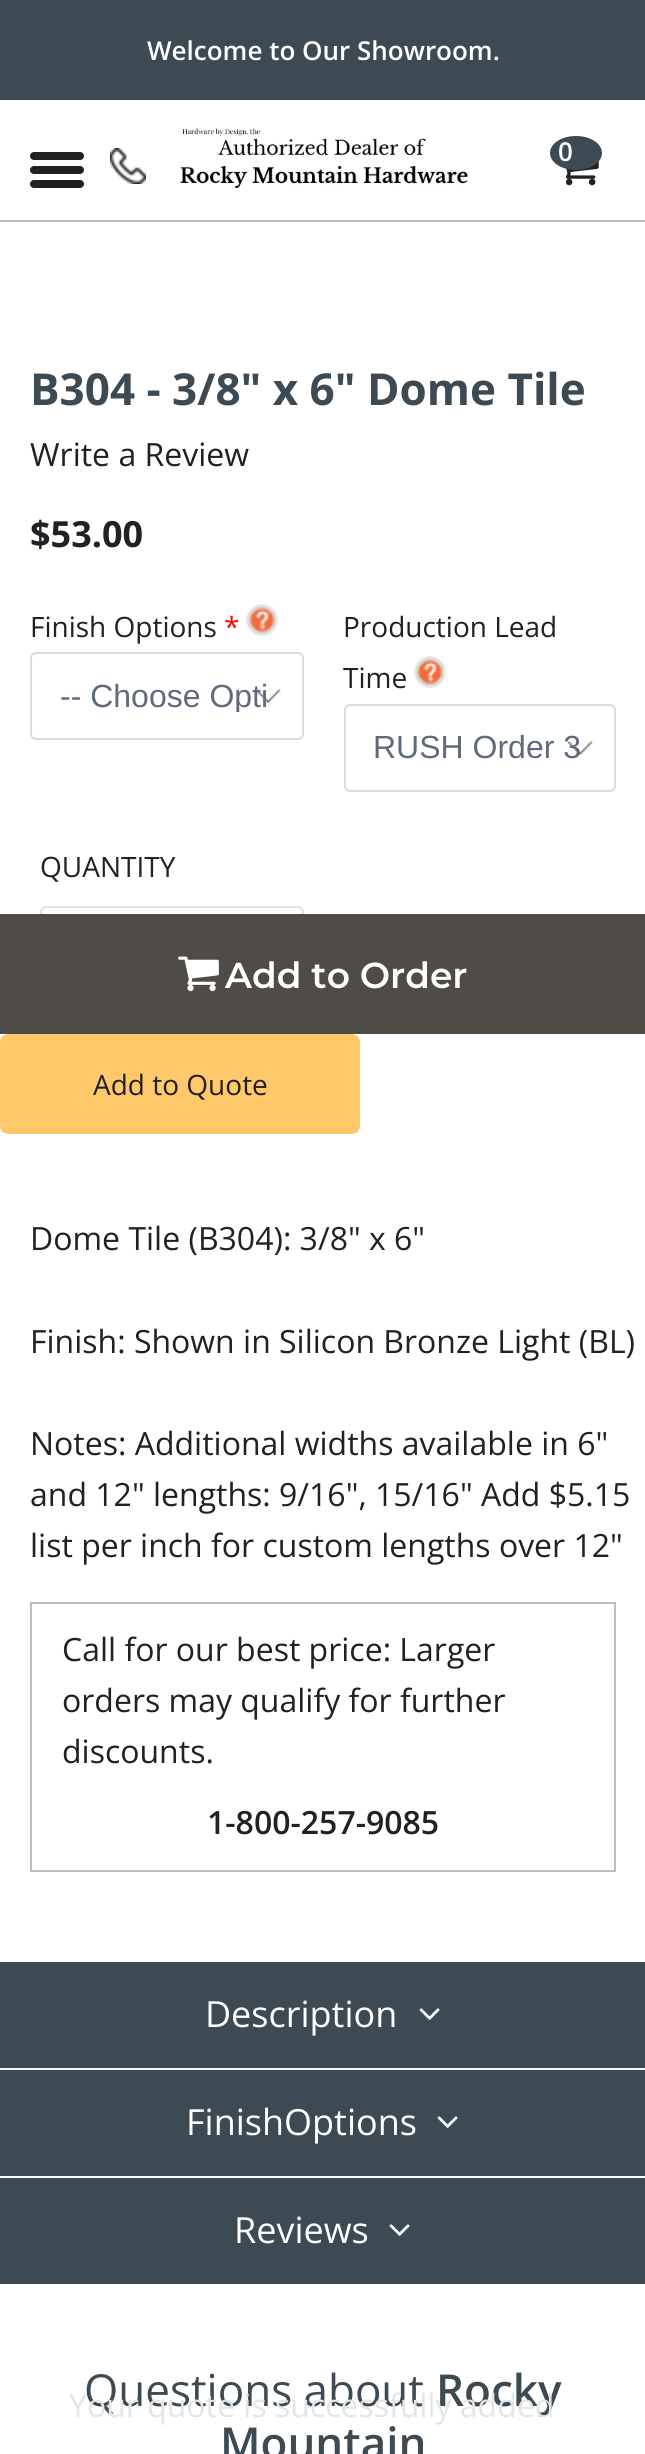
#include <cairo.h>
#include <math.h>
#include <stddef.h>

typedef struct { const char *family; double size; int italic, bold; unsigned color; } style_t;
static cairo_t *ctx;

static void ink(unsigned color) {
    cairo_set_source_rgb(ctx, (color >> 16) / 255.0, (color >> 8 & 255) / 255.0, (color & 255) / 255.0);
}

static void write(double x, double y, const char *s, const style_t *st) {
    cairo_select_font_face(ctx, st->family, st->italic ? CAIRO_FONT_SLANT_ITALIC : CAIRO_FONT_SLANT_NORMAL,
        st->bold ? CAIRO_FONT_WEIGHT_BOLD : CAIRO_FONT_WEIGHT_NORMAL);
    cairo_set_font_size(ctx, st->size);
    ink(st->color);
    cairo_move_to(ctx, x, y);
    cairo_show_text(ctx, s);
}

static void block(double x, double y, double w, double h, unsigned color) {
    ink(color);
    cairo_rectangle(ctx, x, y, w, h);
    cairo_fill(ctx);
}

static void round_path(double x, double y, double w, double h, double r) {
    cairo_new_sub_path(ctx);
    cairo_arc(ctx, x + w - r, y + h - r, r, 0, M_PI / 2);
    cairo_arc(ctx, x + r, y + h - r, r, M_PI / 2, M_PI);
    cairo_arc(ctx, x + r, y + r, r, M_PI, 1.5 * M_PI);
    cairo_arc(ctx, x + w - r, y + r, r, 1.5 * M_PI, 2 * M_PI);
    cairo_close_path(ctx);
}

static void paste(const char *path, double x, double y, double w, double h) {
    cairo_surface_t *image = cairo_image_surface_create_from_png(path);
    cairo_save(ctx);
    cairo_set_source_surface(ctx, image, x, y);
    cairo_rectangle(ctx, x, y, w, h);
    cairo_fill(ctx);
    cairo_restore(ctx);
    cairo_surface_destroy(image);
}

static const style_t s1 = {"Open Sans SemiBold", 26, 0, 0, 0xffffff};
static const style_t s2 = {"Open Sans", 44, 0, 1, 0x3d4a53};
static const style_t s3 = {"Open Sans", 32, 0, 0, 0x202124};
static const style_t s4 = {"Open Sans", 36, 0, 1, 0x202124};
static const style_t s5 = {"Open Sans", 28, 0, 0, 0x202124};
static const style_t s6 = {"Open Sans", 28, 0, 0, 0xff0000};
static const style_t s7 = {"Liberation Sans", 32, 0, 0, 0x5f6a7d};
static const style_t s8 = {"Montserrat SemiBold", 36, 0, 0, 0xffffff};
static const style_t s9 = {"Open Sans SemiBold", 32, 0, 0, 0x202124};
static const style_t s10 = {"Open Sans", 36, 0, 0, 0xffffff};
static const style_t s11 = {"Open Sans", 44, 0, 0, 0x3d4a53};
static const style_t s12 = {"Open Sans SemiBold", 44, 0, 0, 0x3d4a53};
static const style_t s13 = {"Open Sans", 32, 0, 0, 0xe3e5e6};

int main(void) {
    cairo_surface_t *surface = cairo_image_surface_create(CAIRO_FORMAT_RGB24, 645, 2454);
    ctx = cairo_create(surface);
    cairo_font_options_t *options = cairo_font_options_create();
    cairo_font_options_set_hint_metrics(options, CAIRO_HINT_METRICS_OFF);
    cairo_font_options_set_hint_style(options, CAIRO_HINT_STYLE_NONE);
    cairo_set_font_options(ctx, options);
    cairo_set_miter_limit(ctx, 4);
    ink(0xffffff);
    cairo_paint(ctx);
    block(0, 220, 645, 2, 0xbcbcbc);
    block(0, 0, 645, 100, 0x3d4a53);
    write(147, 60, "Welcome to Our Showroom.", &s1);
    ink(0x202124);
    round_path(30, 152, 54, 8, 4);
    cairo_fill(ctx);
    round_path(30, 166, 54, 8, 4);
    cairo_fill(ctx);
    round_path(30, 180, 54, 8, 4);
    cairo_fill(ctx);
    paste("pic1.png", 110, 148, 36, 36);
    paste("pic2.png", 180, 128, 288, 61);
    paste("pic3.png", 565, 161, 34, 25);
    ink(0x3d4a53);
    cairo_new_path(ctx);
    cairo_move_to(ctx, 576, 136);
    cairo_curve_to(ctx, 590.5, 136, 602, 143.5, 602, 153);
    cairo_curve_to(ctx, 602, 162.5, 590.5, 170, 576, 170);
    cairo_curve_to(ctx, 561.5, 170, 550, 162.5, 550, 153);
    cairo_curve_to(ctx, 550, 143.5, 561.5, 136, 576, 136);
    cairo_close_path(ctx);
    cairo_fill(ctx);
    write(558, 161, "0", &s1);
    write(30, 405, "B304 - 3/8\" x 6\" Dome Tile", &s2);
    write(30, 466, "Write a Review", &s3);
    write(30, 547, "$53.00", &s4);
    write(30, 637, "Finish Options", &s5);
    write(224, 637, "*", &s6);
    paste("pic4.png", 246, 604, 32, 32);
    paste("pic5.png", 256, 688, 25, 16);
    round_path(31, 653, 272, 86, 5);
    ink(0xd9dbdc);
    cairo_stroke(ctx);
    cairo_save(ctx);
    cairo_rectangle(ctx, 60, 678, 214, 34);
    cairo_clip(ctx);
    write(60, 707, "-- Choose Opti", &s7);
    cairo_restore(ctx);
    write(343, 637, "Production Lead", &s5);
    write(343, 688, "Time", &s5);
    paste("pic4.png", 414, 656, 32, 32);
    paste("pic5.png", 568, 740, 25, 16);
    round_path(345, 705, 270, 86, 5);
    ink(0xd9dbdc);
    cairo_stroke(ctx);
    write(373, 758, "RUSH Order 3", &s7);
    write(40, 877, "QUANTITY", &s5);
    ink(0xe2e2e2);
    cairo_set_fill_rule(ctx, CAIRO_FILL_RULE_EVEN_ODD);
    cairo_new_path(ctx);
    cairo_move_to(ctx, 46, 906);
    cairo_line_to(ctx, 128, 906);
    cairo_line_to(ctx, 128, 994);
    cairo_line_to(ctx, 46, 994);
    cairo_curve_to(ctx, 43, 994, 40, 991, 40, 988);
    cairo_line_to(ctx, 40, 912);
    cairo_curve_to(ctx, 40, 909, 43, 906, 46, 906);
    cairo_close_path(ctx);
    cairo_move_to(ctx, 46, 908);
    cairo_line_to(ctx, 128, 908);
    cairo_line_to(ctx, 128, 992);
    cairo_line_to(ctx, 46, 992);
    cairo_curve_to(ctx, 44, 992, 42, 990, 42, 988);
    cairo_line_to(ctx, 42, 912);
    cairo_curve_to(ctx, 42, 910, 44, 908, 46, 908);
    cairo_close_path(ctx);
    cairo_fill(ctx);
    block(128, 906, 88, 2, 0xe2e2e2);
    cairo_new_path(ctx);
    cairo_move_to(ctx, 216, 906);
    cairo_line_to(ctx, 298, 906);
    cairo_curve_to(ctx, 301, 906, 304, 909, 304, 912);
    cairo_line_to(ctx, 304, 988);
    cairo_curve_to(ctx, 304, 991, 301, 994, 298, 994);
    cairo_line_to(ctx, 216, 994);
    cairo_close_path(ctx);
    cairo_move_to(ctx, 216, 908);
    cairo_line_to(ctx, 298, 908);
    cairo_curve_to(ctx, 300, 908, 302, 910, 302, 912);
    cairo_line_to(ctx, 302, 988);
    cairo_curve_to(ctx, 302, 990, 300, 992, 298, 992);
    cairo_line_to(ctx, 216, 992);
    cairo_close_path(ctx);
    cairo_fill(ctx);
    block(0, 914, 645, 120, 0x4f4b47);
    paste("pic6.png", 178, 956, 41, 36);
    write(225, 988, "Add to Order", &s8);
    ink(0xffc96b);
    round_path(0, 1034, 360, 100, 8);
    cairo_fill(ctx);
    write(93, 1095, "Add to Quote", &s5);
    write(30, 1250, "Dome Tile (B304): 3/8\" x 6\"", &s3);
    write(30, 1353, "Finish: Shown in Silicon Bronze Light (BL)", &s3);
    write(30, 1455, "Notes: Additional widths available in 6\"", &s3);
    write(30, 1506, "and 12\" lengths: 9/16\", 15/16\" Add $5.15", &s3);
    write(30, 1557, "list per inch for custom lengths over 12\"", &s3);
    cairo_rectangle(ctx, 31, 1603, 584, 268);
    ink(0xbdbdbd);
    cairo_stroke(ctx);
    write(62, 1661, "Call for our best price: Larger", &s3);
    write(62, 1712, "orders may qualify for further", &s3);
    write(62, 1763, "discounts.", &s3);
    write(207, 1834, "1-800-257-9085", &s9);
    block(0, 1962, 645, 106, 0x3d4a53);
    write(205, 2027, "Description", &s10);
    paste("pic7.png", 419, 2008, 21, 12);
    block(0, 2070, 645, 106, 0x3d4a53);
    write(186, 2135, "FinishOptions", &s10);
    paste("pic7.png", 437, 2116, 21, 12);
    block(0, 2178, 645, 106, 0x3d4a53);
    write(234, 2243, "Reviews", &s10);
    paste("pic7.png", 389, 2224, 21, 12);
    write(84, 2406, "Questions about", &s11);
    write(436, 2406, "Rocky", &s12);
    write(220, 2459, "Mountain", &s12);
    write(69, 2417, "Your quote is successfully added", &s13);
    cairo_surface_write_to_png(surface, "screenshot.png");
    cairo_font_options_destroy(options);
    cairo_destroy(ctx);
    cairo_surface_destroy(surface);
    return 0;
}
